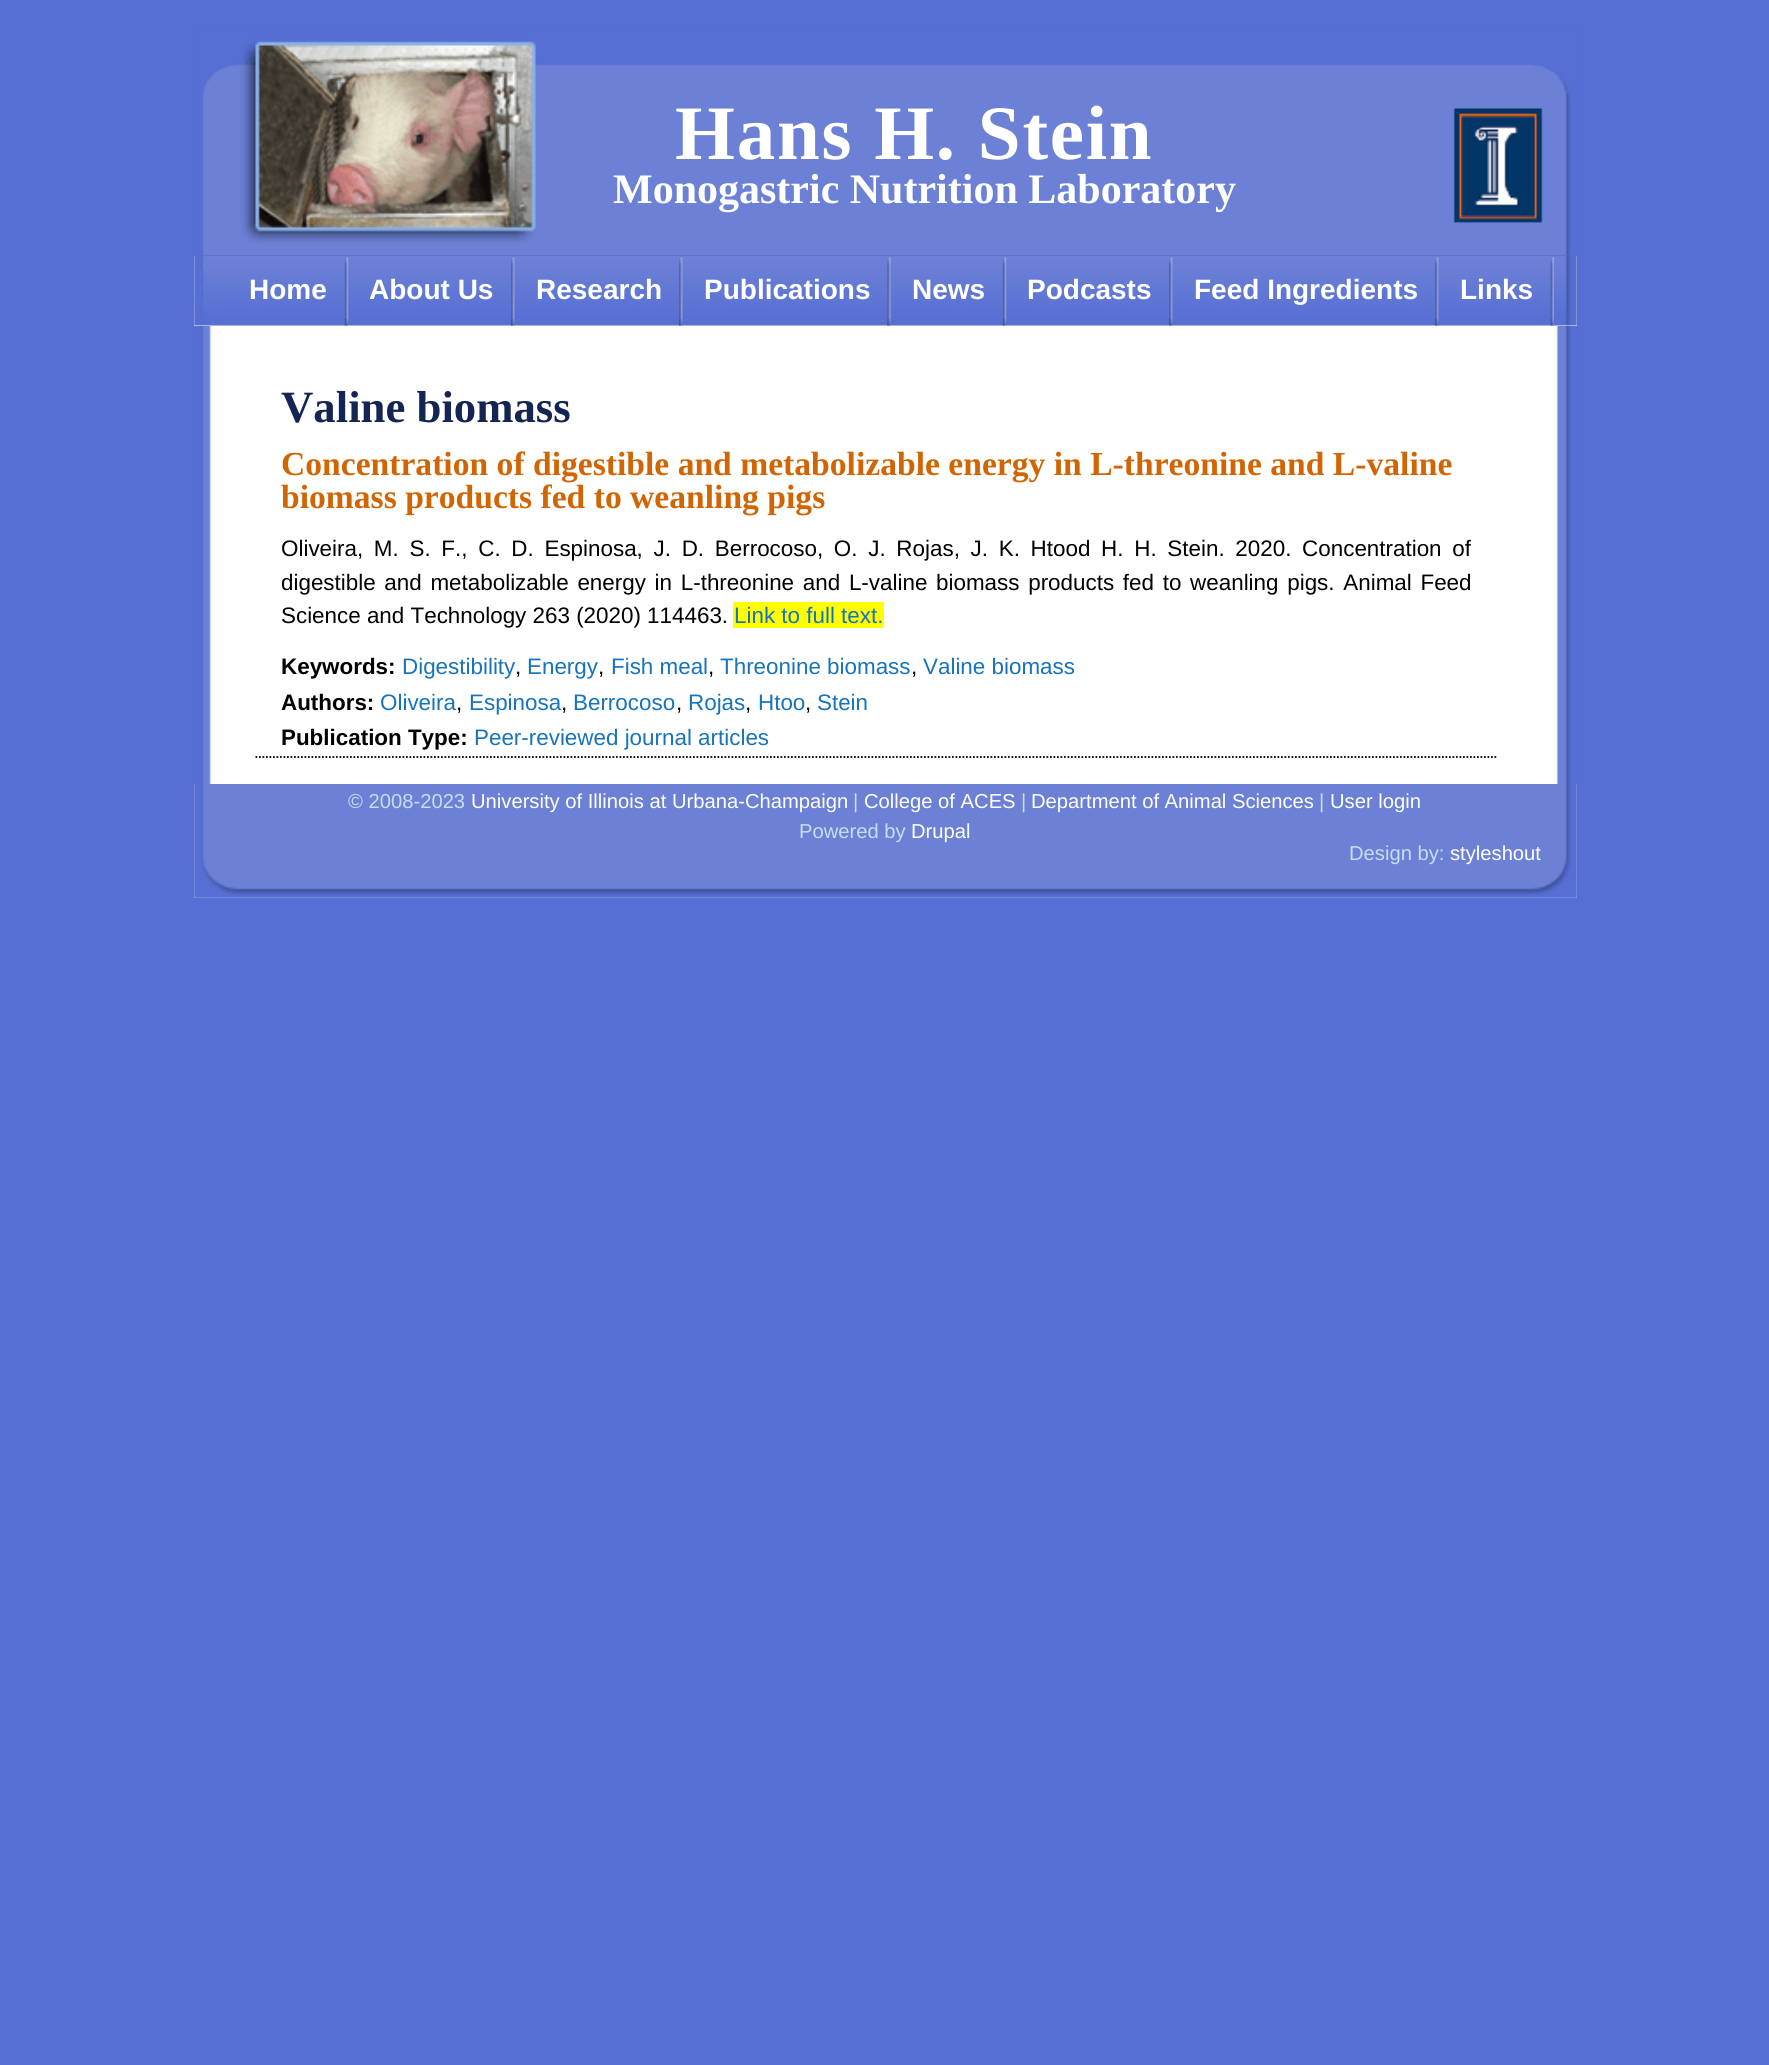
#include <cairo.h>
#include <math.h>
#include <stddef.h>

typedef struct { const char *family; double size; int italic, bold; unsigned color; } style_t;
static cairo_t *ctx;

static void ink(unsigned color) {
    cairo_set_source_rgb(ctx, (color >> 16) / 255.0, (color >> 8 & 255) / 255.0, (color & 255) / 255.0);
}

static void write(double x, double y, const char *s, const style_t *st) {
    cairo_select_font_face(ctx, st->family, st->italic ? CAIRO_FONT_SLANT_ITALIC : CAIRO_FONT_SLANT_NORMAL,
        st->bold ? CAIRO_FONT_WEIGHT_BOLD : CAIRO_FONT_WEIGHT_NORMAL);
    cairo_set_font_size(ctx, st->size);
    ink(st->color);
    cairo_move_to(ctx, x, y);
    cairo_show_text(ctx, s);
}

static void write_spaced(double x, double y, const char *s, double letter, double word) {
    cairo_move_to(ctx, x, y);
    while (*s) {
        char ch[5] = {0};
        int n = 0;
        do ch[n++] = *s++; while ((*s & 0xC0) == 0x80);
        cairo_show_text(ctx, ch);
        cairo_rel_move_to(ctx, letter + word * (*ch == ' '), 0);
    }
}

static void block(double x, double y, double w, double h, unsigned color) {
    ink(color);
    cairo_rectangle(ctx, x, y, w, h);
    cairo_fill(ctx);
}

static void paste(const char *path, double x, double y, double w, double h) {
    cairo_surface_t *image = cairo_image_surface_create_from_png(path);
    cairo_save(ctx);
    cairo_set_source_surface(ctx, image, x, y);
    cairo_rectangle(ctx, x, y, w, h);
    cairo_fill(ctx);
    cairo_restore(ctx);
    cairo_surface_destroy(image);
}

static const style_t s1 = {"Liberation Serif", 42, 0, 1, 0xffffff};
static const style_t s2 = {"Liberation Sans", 28, 0, 1, 0xffffff};
static const style_t s3 = {"Liberation Serif", 44.75, 0, 1, 0x142553};
static const style_t s4 = {"Liberation Serif", 33.6, 0, 1, 0xd16504};
static const style_t s5 = {"Liberation Sans", 22.4, 0, 0, 0x000000};
static const style_t s6 = {"Liberation Sans", 22.4, 0, 0, 0x1773bc};
static const style_t s7 = {"Liberation Sans", 22.4, 0, 1, 0x000000};
static const style_t s8 = {"Liberation Sans", 20.2, 0, 0, 0xc6ddee};
static const style_t s9 = {"Liberation Sans", 20.2, 0, 0, 0xffffff};

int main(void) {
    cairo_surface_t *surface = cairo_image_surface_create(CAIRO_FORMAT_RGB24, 1769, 2065);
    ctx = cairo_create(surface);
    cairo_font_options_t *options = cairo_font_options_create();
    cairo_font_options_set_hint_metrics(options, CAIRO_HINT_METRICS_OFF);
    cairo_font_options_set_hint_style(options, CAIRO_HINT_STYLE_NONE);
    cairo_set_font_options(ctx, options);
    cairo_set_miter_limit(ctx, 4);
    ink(0x576fd4);
    cairo_paint(ctx);
    paste("pic1.png", 194, 326, 1383, 458);
    block(194, 26, 1383, 230, 0x5765d4);
    paste("pic2.png", 194, 26, 1383, 230);
    cairo_select_font_face(ctx, "Liberation Serif", CAIRO_FONT_SLANT_NORMAL, CAIRO_FONT_WEIGHT_BOLD);
    cairo_set_font_size(ctx, 77);
    ink(0xffffff);
    write_spaced(675, 159, "Hans H. Stein", 1.75, 0);
    write(613, 203, "Monogastric Nutrition Laboratory", &s1);
    block(194, 256, 1383, 70, 0xffffff);
    paste("pic3.png", 194, 256, 1383, 70);
    paste("pic4.png", 344, 257, 5, 69);
    write(249, 299, "Home", &s2);
    paste("pic5.png", 511, 257, 4, 69);
    write(369, 299, "About Us", &s2);
    paste("pic6.png", 679, 257, 4, 69);
    write(536, 299, "Research", &s2);
    paste("pic7.png", 887, 257, 4, 69);
    write(704, 299, "Publications", &s2);
    paste("pic8.png", 1002, 257, 5, 69);
    write(912, 299, "News", &s2);
    paste("pic9.png", 1169, 257, 4, 69);
    write(1027, 299, "Podcasts", &s2);
    paste("pic6.png", 1435, 257, 4, 69);
    write(1194, 299, "Feed Ingredients", &s2);
    paste("pic10.png", 1550, 257, 4, 69);
    write(1460, 299, "Links", &s2);
    write(281, 422, "Valine biomass", &s3);
    cairo_new_path(ctx);
    cairo_move_to(ctx, 255.5, 757);
    cairo_line_to(ctx, 1498, 757);
    ink(0x000000);
    cairo_set_line_width(ctx, 1.8);
    cairo_set_dash(ctx, (double[]){1.75, 1.75}, 2, 0);
    cairo_stroke(ctx);
    write(281, 475, "Concentration of digestible and metabolizable energy in L-threonine and L-valine", &s4);
    write(281, 508, "biomass products fed to weanling pigs", &s4);
    cairo_select_font_face(ctx, "Liberation Sans", CAIRO_FONT_SLANT_NORMAL, CAIRO_FONT_WEIGHT_NORMAL);
    cairo_set_font_size(ctx, 22.4);
    ink(0x000000);
    write_spaced(281, 556, "Oliveira, M. S. F., C. D. Espinosa, J. D. Berrocoso, O. J. Rojas, J. K. Htood H. H. Stein. 2020. Concentration of", 0, 4.5);
    write_spaced(281, 590, "digestible and metabolizable energy in L-threonine and L-valine biomass products fed to weanling pigs. Animal Feed", 0, 2.5);
    write(281, 623, "Science and Technology 263 (2020) 114463.", &s5);
    block(733, 602, 151, 26, 0xffff00);
    write(734, 623, "Link to full text.", &s6);
    write(281, 674, "Keywords:", &s7);
    write(402, 674, "Digestibility", &s6);
    write(515, 674, ",", &s5);
    write(527, 674, "Energy", &s6);
    write(598, 674, ",", &s5);
    write(611, 674, "Fish meal", &s6);
    write(708, 674, ",", &s5);
    write(720, 674, "Threonine biomass", &s6);
    write(911, 674, ",", &s5);
    write(923, 674, "Valine biomass", &s6);
    write(281, 710, "Authors:", &s7);
    write(380, 710, "Oliveira", &s6);
    write(456, 710, ",", &s5);
    write(469, 710, "Espinosa", &s6);
    write(561, 710, ",", &s5);
    write(573, 710, "Berrocoso", &s6);
    write(676, 710, ",", &s5);
    write(688, 710, "Rojas", &s6);
    write(745, 710, ",", &s5);
    write(758, 710, "Htoo", &s6);
    write(805, 710, ",", &s5);
    write(817, 710, "Stein", &s6);
    write(281, 745, "Publication Type:", &s7);
    write(474, 745, "Peer-reviewed journal articles", &s6);
    block(194, 784, 1383, 114, 0xcaced1);
    paste("pic11.png", 194, 784, 1383, 114);
    write(348, 808, "© 2008-2023", &s8);
    write(471, 808, "University of Illinois at Urbana-Champaign", &s9);
    write(853, 808, "|", &s8);
    write(864, 808, "College of ACES", &s9);
    write(1021, 808, "|", &s8);
    write(1031, 808, "Department of Animal Sciences", &s9);
    write(1319, 808, "|", &s8);
    write(1330, 808, "User login", &s9);
    write(799, 838, "Powered by", &s8);
    write(911, 838, "Drupal", &s9);
    write(1349, 860, "Design by:", &s8);
    write(1450, 860, "styleshout", &s9);
    cairo_surface_write_to_png(surface, "screenshot.png");
    cairo_font_options_destroy(options);
    cairo_destroy(ctx);
    cairo_surface_destroy(surface);
    return 0;
}
